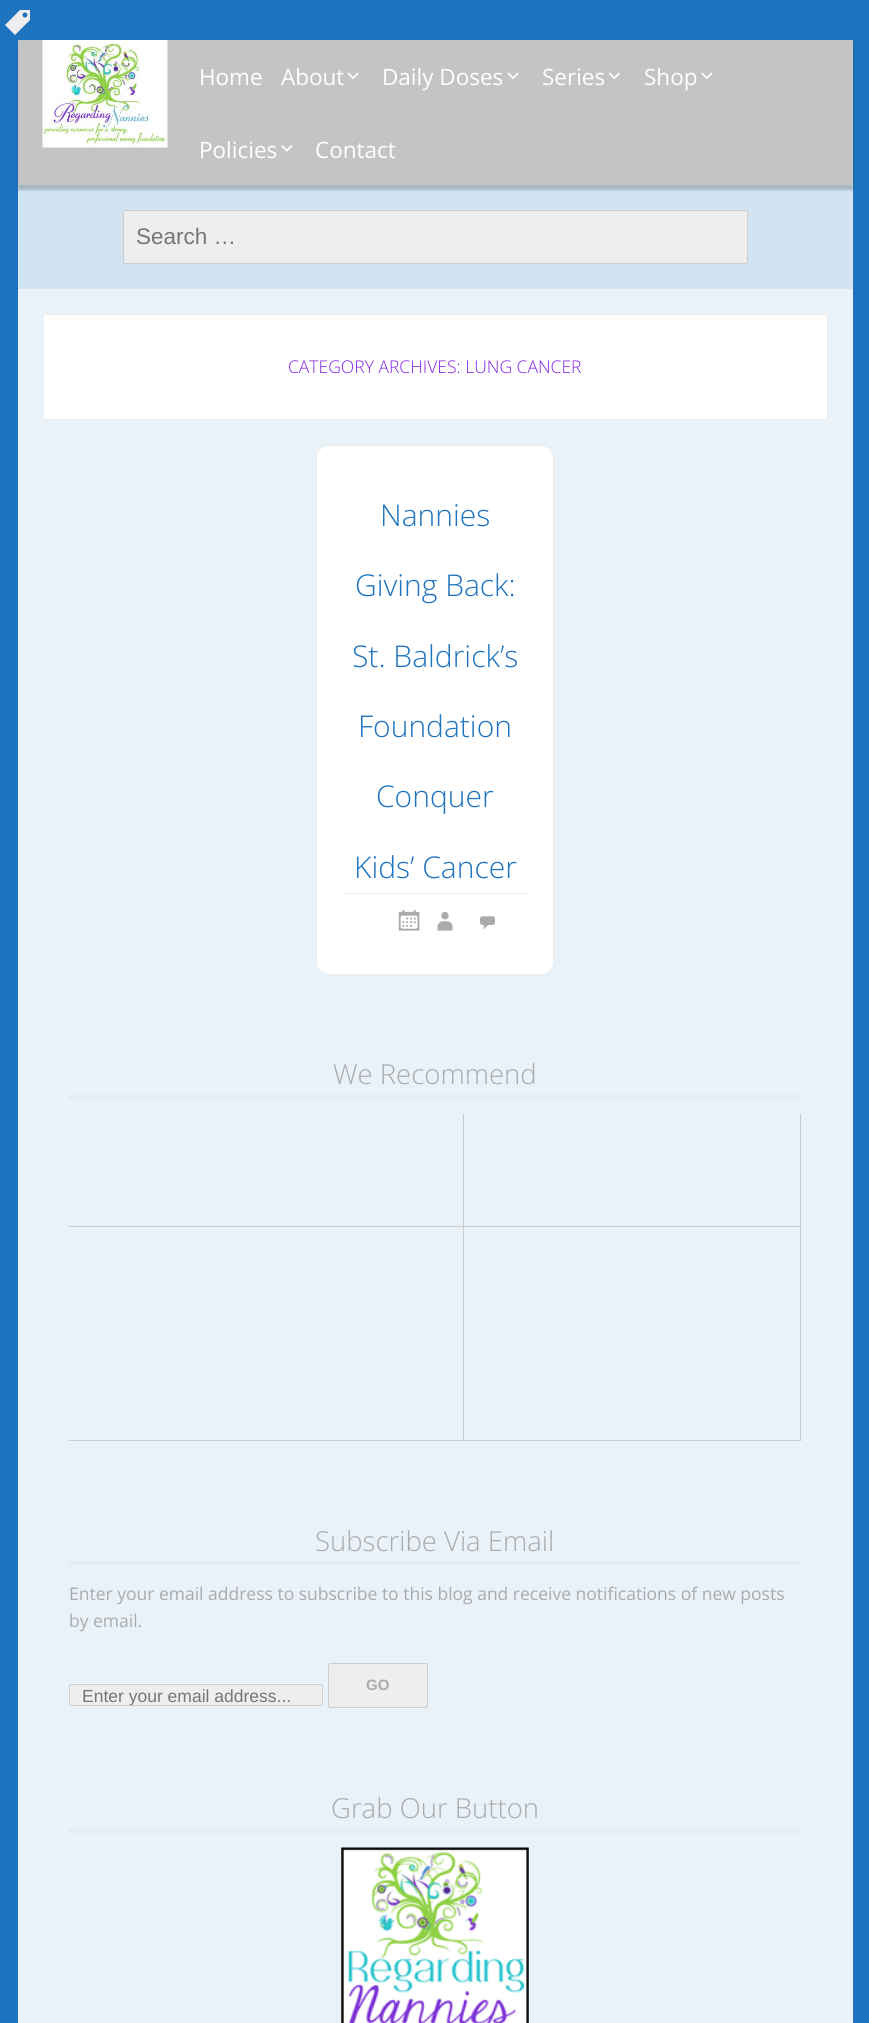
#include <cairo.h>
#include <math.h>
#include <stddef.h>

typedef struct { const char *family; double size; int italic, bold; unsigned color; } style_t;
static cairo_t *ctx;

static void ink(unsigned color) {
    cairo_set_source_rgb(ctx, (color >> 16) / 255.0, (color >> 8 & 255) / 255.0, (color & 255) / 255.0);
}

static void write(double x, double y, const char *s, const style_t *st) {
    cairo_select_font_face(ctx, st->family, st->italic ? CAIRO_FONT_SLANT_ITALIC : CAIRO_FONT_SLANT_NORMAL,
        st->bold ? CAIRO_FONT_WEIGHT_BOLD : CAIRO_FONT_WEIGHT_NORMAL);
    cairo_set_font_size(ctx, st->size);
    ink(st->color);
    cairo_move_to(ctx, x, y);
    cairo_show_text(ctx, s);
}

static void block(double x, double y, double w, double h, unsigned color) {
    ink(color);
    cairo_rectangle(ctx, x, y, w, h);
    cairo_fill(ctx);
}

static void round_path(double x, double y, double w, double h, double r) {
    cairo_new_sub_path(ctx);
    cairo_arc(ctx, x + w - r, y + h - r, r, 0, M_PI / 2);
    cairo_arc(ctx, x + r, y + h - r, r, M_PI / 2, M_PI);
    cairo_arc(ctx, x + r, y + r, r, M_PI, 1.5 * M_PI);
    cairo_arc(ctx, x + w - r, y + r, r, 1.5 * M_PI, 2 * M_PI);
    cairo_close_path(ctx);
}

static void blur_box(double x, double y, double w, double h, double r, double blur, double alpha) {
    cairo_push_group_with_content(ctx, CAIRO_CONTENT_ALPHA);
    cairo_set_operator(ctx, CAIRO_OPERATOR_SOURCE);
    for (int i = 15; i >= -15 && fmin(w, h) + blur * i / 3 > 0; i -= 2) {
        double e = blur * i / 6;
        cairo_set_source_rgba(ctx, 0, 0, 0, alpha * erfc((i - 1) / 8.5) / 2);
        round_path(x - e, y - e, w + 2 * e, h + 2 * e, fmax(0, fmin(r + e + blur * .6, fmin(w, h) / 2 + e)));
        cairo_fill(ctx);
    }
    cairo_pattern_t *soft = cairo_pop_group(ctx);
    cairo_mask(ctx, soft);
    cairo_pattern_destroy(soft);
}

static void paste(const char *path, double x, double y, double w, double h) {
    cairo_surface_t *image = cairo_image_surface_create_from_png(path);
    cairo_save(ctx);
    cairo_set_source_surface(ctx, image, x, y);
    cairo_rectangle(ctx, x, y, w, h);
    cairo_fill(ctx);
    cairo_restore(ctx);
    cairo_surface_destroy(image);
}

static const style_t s1 = {"Open Sans", 22.5, 0, 0, 0xffffff};
static const style_t s2 = {"Liberation Sans", 22.5, 0, 0, 0x757575};
static const style_t s3 = {"Open Sans Light", 17.5, 0, 0, 0x8224e3};
static const style_t s4 = {"Open Sans Light", 30, 0, 0, 0x1e73be};
static const style_t s5 = {"Open Sans Light", 27.5, 0, 0, 0xaaaaaa};
static const style_t s6 = {"Open Sans", 17.5, 0, 0, 0xaaaaaa};
static const style_t s7 = {"Liberation Sans", 15, 0, 1, 0xaaaaaa};
static const style_t s8 = {"Liberation Sans", 17.5, 0, 0, 0x757575};

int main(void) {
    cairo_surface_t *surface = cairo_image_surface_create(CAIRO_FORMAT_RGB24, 869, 2023);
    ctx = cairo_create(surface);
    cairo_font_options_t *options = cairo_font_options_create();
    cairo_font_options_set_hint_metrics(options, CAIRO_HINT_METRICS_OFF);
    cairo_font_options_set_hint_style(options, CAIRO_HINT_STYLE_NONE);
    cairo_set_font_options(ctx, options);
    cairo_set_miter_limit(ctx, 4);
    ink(0x1e73be);
    cairo_paint(ctx);
    paste("pic1.png", 5, 10, 25, 25);
    block(18, 185, 835, 104, 0xd2e3f2);
    ink(0x000000);
    blur_box(18, 45, 835, 145, 0, 1, 0.2);
    block(18, 40, 835, 145, 0xc4c4c4);
    paste("pic2.png", 42, 40, 126, 108);
    write(199, 85, "Home", &s1);
    write(281, 85, "About", &s1);
    paste("pic3.png", 347, 72, 12, 8);
    write(382, 85, "Daily Doses", &s1);
    paste("pic3.png", 507, 72, 12, 8);
    write(542, 85, "Series", &s1);
    paste("pic4.png", 609, 72, 11, 8);
    write(644, 85, "Shop", &s1);
    paste("pic5.png", 701, 72, 12, 8);
    write(199, 158, "Policies", &s1);
    paste("pic6.png", 281, 145, 12, 7);
    write(315, 158, "Contact", &s1);
    ink(0xeeeeee);
    round_path(123.5, 210.5, 624, 53, 2);
    cairo_fill_preserve(ctx);
    ink(0xcccccc);
    cairo_set_line_width(ctx, 1);
    cairo_stroke(ctx);
    write(136, 244, "Search …", &s2);
    block(18, 289, 835, 1734, 0xe9f1f9);
    ink(0xffffff);
    cairo_rectangle(ctx, 43.5, 314.5, 784, 105);
    cairo_fill_preserve(ctx);
    ink(0xeeeeee);
    cairo_stroke(ctx);
    write(288, 373, "CATEGORY ARCHIVES: LUNG CANCER", &s3);
    ink(0xffffff);
    round_path(316.5, 445.5, 237, 529, 12.5);
    cairo_fill_preserve(ctx);
    ink(0xeeeeee);
    cairo_stroke(ctx);
    block(343, 893, 185, 1, 0xeeeeee);
    write(380, 526, "Nannies", &s4);
    write(355, 596, "Giving Back:", &s4);
    write(352, 667, "St. Baldrick’s", &s4);
    write(358, 737, "Foundation", &s4);
    write(376, 807, "Conquer", &s4);
    write(354, 878, "Kids’ Cancer", &s4);
    paste("pic7.png", 398, 910, 22, 21);
    paste("pic8.png", 437, 912, 16, 19);
    paste("pic9.png", 480, 916, 15, 14);
    block(69, 1095, 732, 4, 0xe5ebf0);
    write(333, 1084, "We Recommend", &s5);
    block(463, 1114, 1, 327, 0xcccccc);
    block(69, 1226, 395, 1, 0xcccccc);
    block(800, 1114, 1, 327, 0xcccccc);
    block(464, 1226, 337, 1, 0xcccccc);
    block(69, 1440, 732, 1, 0xcccccc);
    block(69, 1561, 732, 4, 0xe5ebf0);
    write(315, 1551, "Subscribe Via Email", &s5);
    write(69, 1600, "Enter your email address to subscribe to this blog and receive notifications of new posts", &s6);
    write(69, 1627, "by email.", &s6);
    ink(0xeeeeee);
    round_path(328.5, 1663.5, 99, 44, 2);
    cairo_fill_preserve(ctx);
    ink(0xcccccc);
    cairo_stroke(ctx);
    write(366, 1690, "GO", &s7);
    ink(0xeeeeee);
    round_path(69.5, 1684.5, 253, 21, 2);
    cairo_fill_preserve(ctx);
    ink(0xcccccc);
    cairo_stroke(ctx);
    cairo_save(ctx);
    round_path(70, 1685, 251, 20, 1);
    cairo_clip(ctx);
    write(82, 1702, "Enter your email address...", &s8);
    cairo_restore(ctx);
    block(69, 1829, 732, 4, 0xe5ebf0);
    write(331, 1818, "Grab Our Button", &s5);
    paste("pic10.png", 341, 1847, 188, 176);
    cairo_surface_write_to_png(surface, "screenshot.png");
    cairo_font_options_destroy(options);
    cairo_destroy(ctx);
    cairo_surface_destroy(surface);
    return 0;
}
